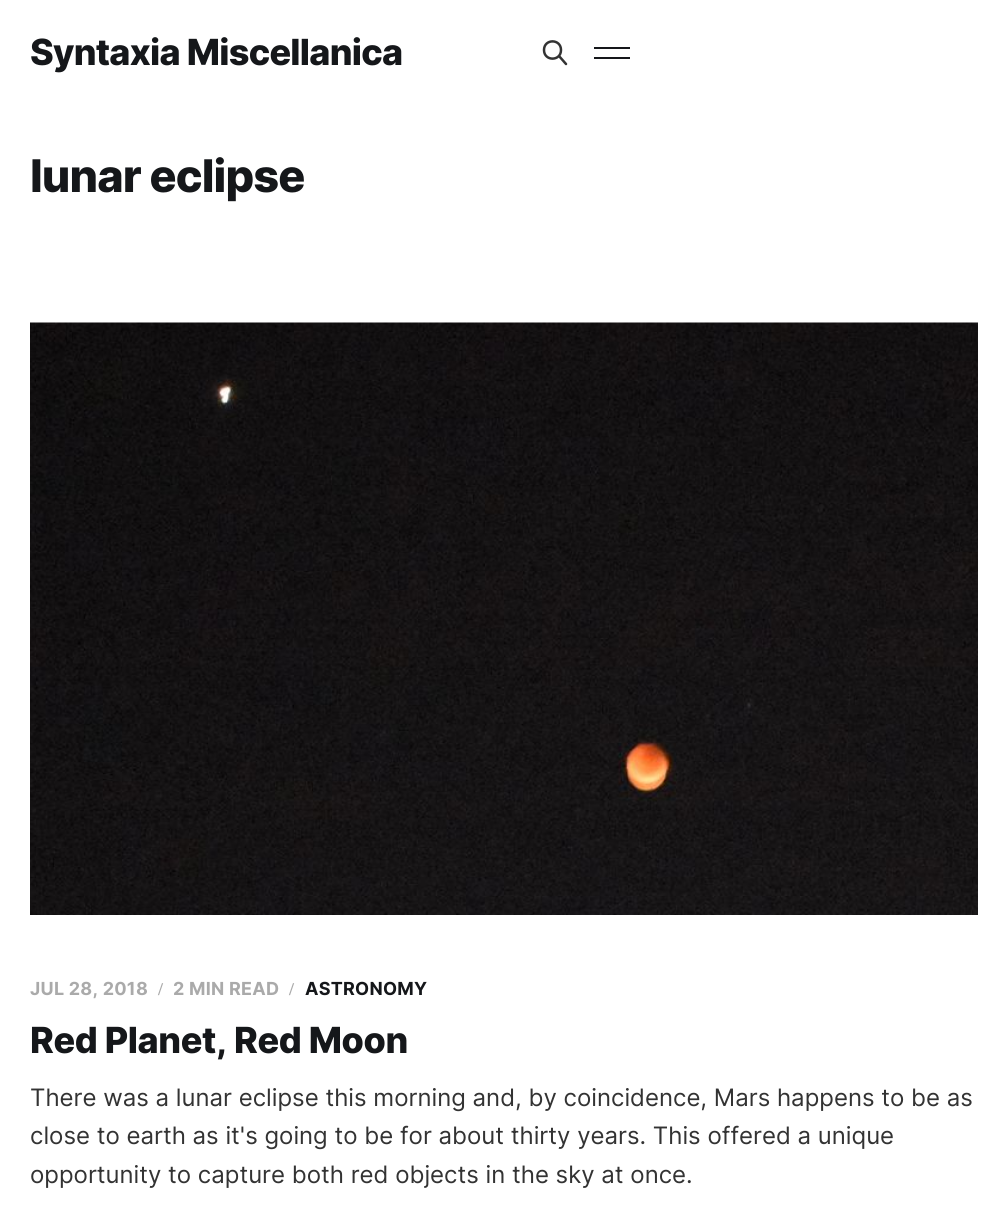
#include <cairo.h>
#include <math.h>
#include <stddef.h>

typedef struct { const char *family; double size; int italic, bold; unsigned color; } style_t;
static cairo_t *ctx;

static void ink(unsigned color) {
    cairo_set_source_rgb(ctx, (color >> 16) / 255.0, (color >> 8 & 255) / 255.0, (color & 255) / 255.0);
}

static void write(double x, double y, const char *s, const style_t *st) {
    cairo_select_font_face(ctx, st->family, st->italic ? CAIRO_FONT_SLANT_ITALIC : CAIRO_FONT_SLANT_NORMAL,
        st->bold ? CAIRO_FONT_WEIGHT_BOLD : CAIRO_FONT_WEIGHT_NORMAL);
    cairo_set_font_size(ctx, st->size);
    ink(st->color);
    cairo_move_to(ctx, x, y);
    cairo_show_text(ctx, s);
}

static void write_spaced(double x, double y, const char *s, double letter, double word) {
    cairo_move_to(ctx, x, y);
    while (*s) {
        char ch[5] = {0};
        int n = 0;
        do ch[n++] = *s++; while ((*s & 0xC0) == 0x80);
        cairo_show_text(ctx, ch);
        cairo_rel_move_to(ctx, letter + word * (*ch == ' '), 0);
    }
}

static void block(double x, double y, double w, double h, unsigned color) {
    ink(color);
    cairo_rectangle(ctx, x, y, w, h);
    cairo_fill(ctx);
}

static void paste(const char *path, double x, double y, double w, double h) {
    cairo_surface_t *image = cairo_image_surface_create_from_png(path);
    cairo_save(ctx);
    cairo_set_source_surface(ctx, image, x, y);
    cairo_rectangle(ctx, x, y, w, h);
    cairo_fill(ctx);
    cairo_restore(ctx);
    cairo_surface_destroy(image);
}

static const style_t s1 = {"Inter", 24, 0, 0, 0x333333};

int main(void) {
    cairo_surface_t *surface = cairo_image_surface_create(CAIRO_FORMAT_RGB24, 1007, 1205);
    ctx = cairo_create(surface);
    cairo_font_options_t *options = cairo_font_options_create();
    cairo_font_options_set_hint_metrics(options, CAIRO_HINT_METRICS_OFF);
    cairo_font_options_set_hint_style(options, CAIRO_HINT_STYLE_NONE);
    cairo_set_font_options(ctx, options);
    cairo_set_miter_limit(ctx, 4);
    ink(0xffffff);
    cairo_paint(ctx);
    cairo_select_font_face(ctx, "Inter ExtraBold", CAIRO_FONT_SLANT_NORMAL, CAIRO_FONT_WEIGHT_NORMAL);
    cairo_set_font_size(ctx, 36);
    ink(0x15171a);
    write_spaced(30, 65, "Syntaxia Miscellanica", -0.75, 0);
    cairo_new_path(ctx);
    cairo_move_to(ctx, 566, 64);
    cairo_line_to(ctx, 559, 56);
    cairo_move_to(ctx, 561, 50);
    cairo_curve_to(ctx, 561, 61.5, 544, 61.5, 544, 50);
    cairo_curve_to(ctx, 544, 38.5, 561, 38.5, 561, 50);
    cairo_close_path(ctx);
    ink(0x333333);
    cairo_set_line_width(ctx, 2.5);
    cairo_set_line_cap(ctx, CAIRO_LINE_CAP_ROUND);
    cairo_set_line_join(ctx, CAIRO_LINE_JOIN_ROUND);
    cairo_stroke(ctx);
    block(594, 47, 36, 2, 0x15171a);
    block(594, 57, 36, 2, 0x15171a);
    cairo_set_font_size(ctx, 45);
    write_spaced(30, 192, "lunar eclipse", -0.9, 0);
    paste("pic1.png", 30, 322, 948, 593);
    cairo_select_font_face(ctx, "Inter", CAIRO_FONT_SLANT_NORMAL, CAIRO_FONT_WEIGHT_BOLD);
    cairo_set_font_size(ctx, 18);
    ink(0xaaaaaa);
    write_spaced(30, 995, "JUL 28, 2018", 0.25, 0);
    cairo_select_font_face(ctx, "Liberation Serif", CAIRO_FONT_SLANT_NORMAL, CAIRO_FONT_WEIGHT_BOLD);
    write_spaced(158, 995, "/", 0.25, 0);
    cairo_select_font_face(ctx, "Inter", CAIRO_FONT_SLANT_NORMAL, CAIRO_FONT_WEIGHT_BOLD);
    write_spaced(173, 995, "2 MIN READ", 0.25, 0);
    cairo_select_font_face(ctx, "Liberation Serif", CAIRO_FONT_SLANT_NORMAL, CAIRO_FONT_WEIGHT_BOLD);
    write_spaced(289, 995, "/", 0.25, 0);
    cairo_select_font_face(ctx, "Inter", CAIRO_FONT_SLANT_NORMAL, CAIRO_FONT_WEIGHT_BOLD);
    ink(0x15171a);
    write_spaced(305, 995, "ASTRONOMY", 0.25, 0);
    cairo_select_font_face(ctx, "Inter ExtraBold", CAIRO_FONT_SLANT_NORMAL, CAIRO_FONT_WEIGHT_NORMAL);
    cairo_set_font_size(ctx, 36);
    write_spaced(30, 1053, "Red Planet, Red Moon", -0.4, 0);
    write(30, 1106, "There was a lunar eclipse this morning and, by coincidence, Mars happens to be as", &s1);
    write(30, 1144, "close to earth as it's going to be for about thirty years. This offered a unique", &s1);
    write(30, 1183, "opportunity to capture both red objects in the sky at once.", &s1);
    cairo_surface_write_to_png(surface, "screenshot.png");
    cairo_font_options_destroy(options);
    cairo_destroy(ctx);
    cairo_surface_destroy(surface);
    return 0;
}
